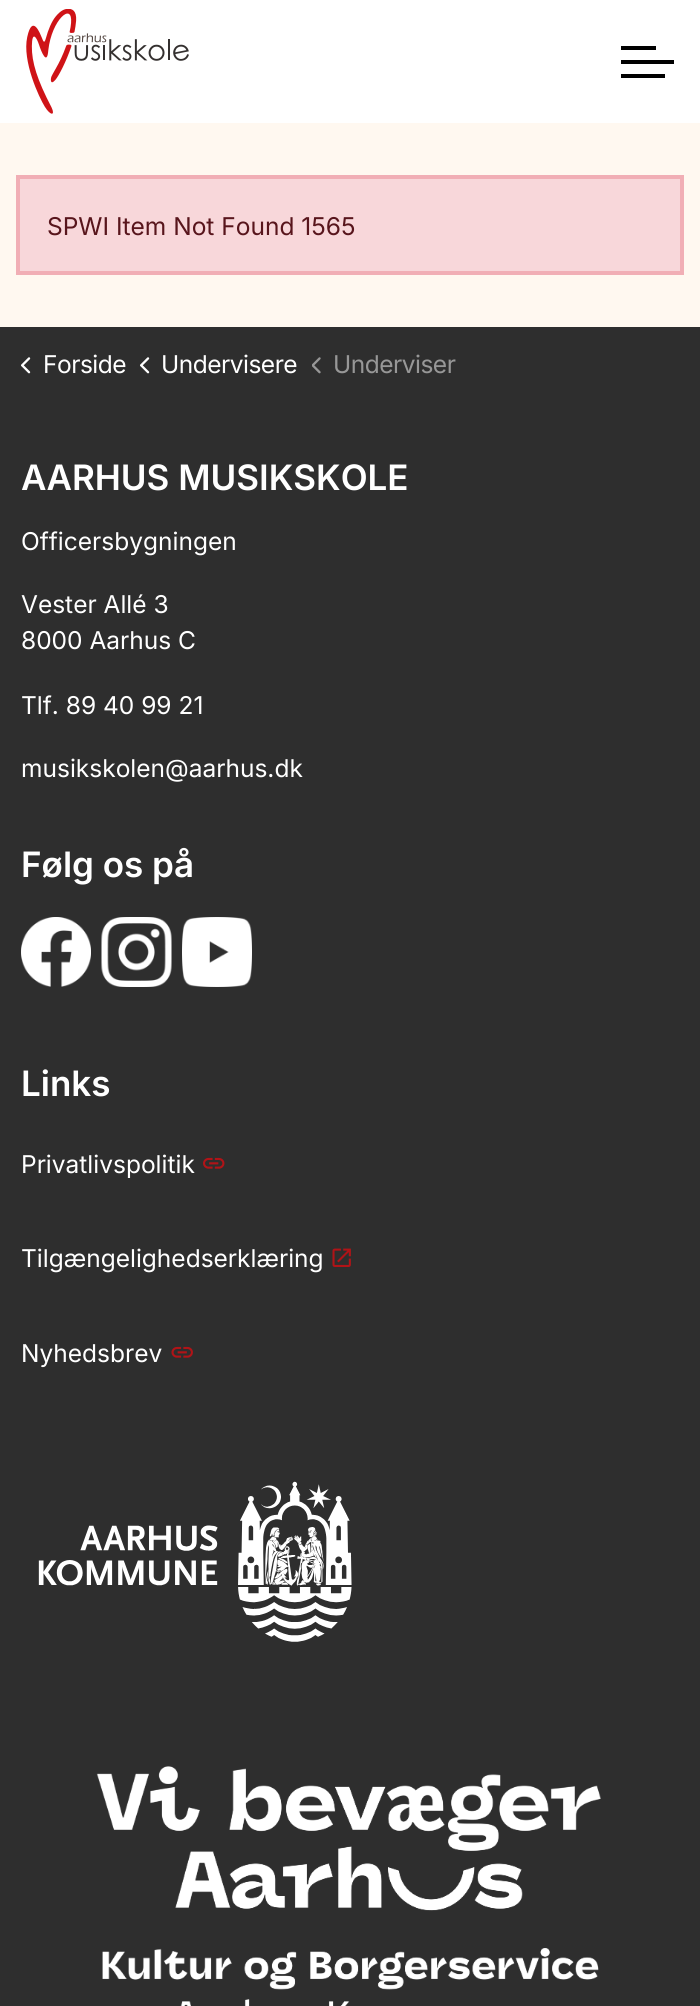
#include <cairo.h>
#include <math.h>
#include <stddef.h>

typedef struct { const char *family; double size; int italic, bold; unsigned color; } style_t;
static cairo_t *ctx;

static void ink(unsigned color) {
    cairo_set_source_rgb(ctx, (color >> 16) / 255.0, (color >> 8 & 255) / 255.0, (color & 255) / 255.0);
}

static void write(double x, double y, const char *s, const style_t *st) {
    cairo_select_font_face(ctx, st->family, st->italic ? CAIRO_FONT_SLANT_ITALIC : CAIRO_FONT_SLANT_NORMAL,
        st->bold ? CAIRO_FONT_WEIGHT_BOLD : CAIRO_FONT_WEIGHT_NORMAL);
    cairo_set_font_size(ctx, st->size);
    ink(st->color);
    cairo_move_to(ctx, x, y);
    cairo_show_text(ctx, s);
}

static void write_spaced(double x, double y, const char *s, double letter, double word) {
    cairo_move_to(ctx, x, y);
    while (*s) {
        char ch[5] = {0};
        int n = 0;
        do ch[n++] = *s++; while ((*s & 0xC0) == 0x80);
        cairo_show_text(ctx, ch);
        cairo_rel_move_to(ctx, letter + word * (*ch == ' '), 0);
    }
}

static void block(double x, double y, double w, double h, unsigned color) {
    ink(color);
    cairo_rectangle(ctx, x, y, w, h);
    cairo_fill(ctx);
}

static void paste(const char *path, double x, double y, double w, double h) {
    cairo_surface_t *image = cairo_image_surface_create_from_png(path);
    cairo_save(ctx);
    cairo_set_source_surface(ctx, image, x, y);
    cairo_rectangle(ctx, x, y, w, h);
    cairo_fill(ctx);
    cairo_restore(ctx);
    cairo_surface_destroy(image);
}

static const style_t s1 = {"Inter", 24.5, 0, 0, 0x58151c};
static const style_t s2 = {"Inter SemiBold", 35, 0, 0, 0xffffff};
static const style_t s3 = {"Inter", 24.5, 0, 0, 0xffffff};

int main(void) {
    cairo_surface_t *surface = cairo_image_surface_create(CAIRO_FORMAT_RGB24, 700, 2006);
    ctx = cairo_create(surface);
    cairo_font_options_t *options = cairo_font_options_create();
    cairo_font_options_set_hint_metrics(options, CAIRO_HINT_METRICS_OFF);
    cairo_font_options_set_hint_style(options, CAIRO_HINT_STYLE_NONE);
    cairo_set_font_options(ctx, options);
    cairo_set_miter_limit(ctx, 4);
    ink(0xffffff);
    cairo_paint(ctx);
    paste("pic1.png", 26, 9, 163, 105);
    block(621, 60, 53, 4, 0x000000);
    block(621, 46, 35, 4, 0x000000);
    block(621, 74, 44, 4, 0x000000);
    block(0, 123, 700, 204, 0xfff8f0);
    ink(0xf8d7da);
    cairo_rectangle(ctx, 18, 177, 664, 96);
    cairo_fill_preserve(ctx);
    ink(0xf1aeb5);
    cairo_set_line_width(ctx, 4);
    cairo_stroke(ctx);
    write(47, 235, "SPWI Item Not Found 1565", &s1);
    block(0, 327, 700, 1679, 0x2e2e2e);
    paste("pic2.png", 21, 357, 10, 17);
    ink(0xffffff);
    write_spaced(43, 373, "Forside", -0.5, 0);
    paste("pic2.png", 140, 357, 10, 17);
    write_spaced(161, 373, "Undervisere", -0.5, 0);
    paste("pic3.png", 312, 357, 9, 17);
    ink(0x979797);
    write_spaced(333, 373, "Underviser", -0.5, 0);
    write(21, 490, "AARHUS MUSIKSKOLE", &s2);
    write(21, 550, "Officersbygningen", &s3);
    write(21, 613, "Vester Allé 3", &s3);
    write(21, 649, "8000 Aarhus C", &s3);
    write(21, 714, "Tlf. 89 40 99 21", &s3);
    write(21, 777, "musikskolen@aarhus.dk", &s3);
    write(21, 877, "Følg os på", &s2);
    paste("pic4.png", 21, 917, 70, 70);
    paste("pic5.png", 101, 917, 71, 70);
    paste("pic6.png", 182, 917, 70, 70);
    write(21, 1096, "Links", &s2);
    write(21, 1173, "Privatlivspolitik", &s3);
    paste("pic7.png", 203, 1157, 22, 12);
    write(21, 1267, "Tilgængelighedserklæring", &s3);
    paste("pic8.png", 332, 1248, 19, 19);
    write(21, 1362, "Nyhedsbrev", &s3);
    paste("pic9.png", 171, 1346, 22, 12);
    paste("pic10.png", 38, 1481, 314, 161);
    paste("pic11.png", 96, 1766, 505, 240);
    cairo_surface_write_to_png(surface, "screenshot.png");
    cairo_font_options_destroy(options);
    cairo_destroy(ctx);
    cairo_surface_destroy(surface);
    return 0;
}
